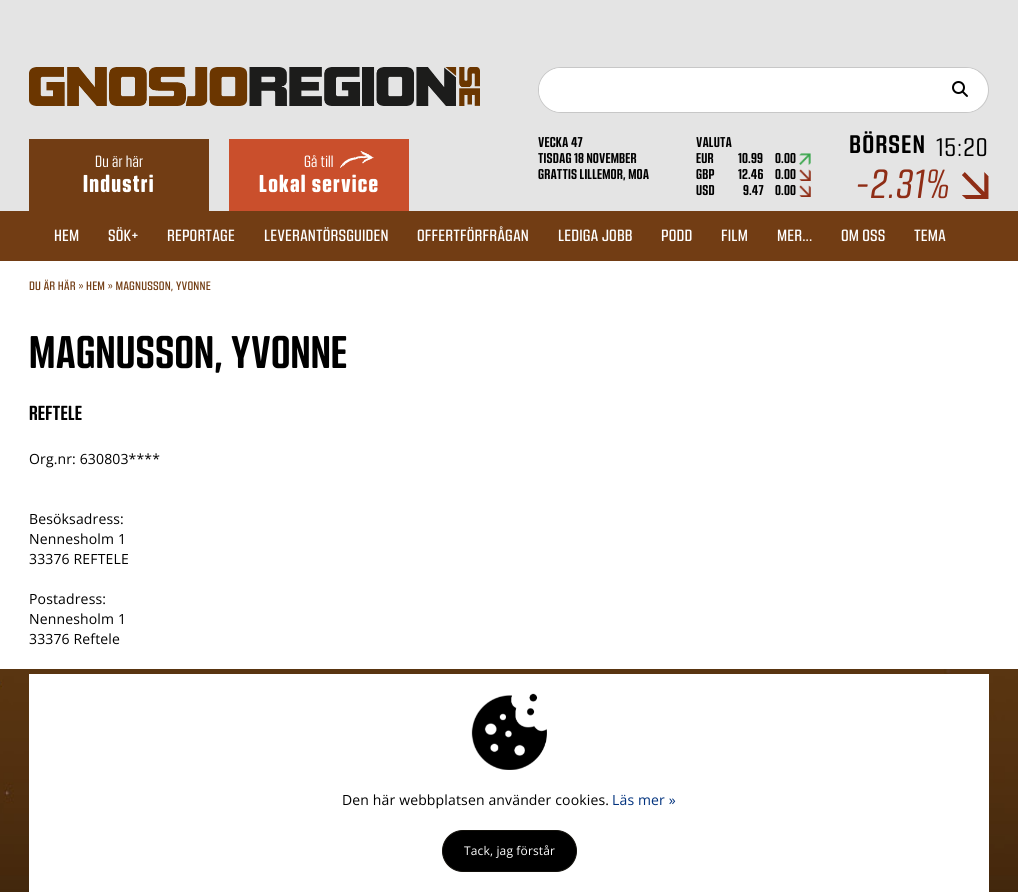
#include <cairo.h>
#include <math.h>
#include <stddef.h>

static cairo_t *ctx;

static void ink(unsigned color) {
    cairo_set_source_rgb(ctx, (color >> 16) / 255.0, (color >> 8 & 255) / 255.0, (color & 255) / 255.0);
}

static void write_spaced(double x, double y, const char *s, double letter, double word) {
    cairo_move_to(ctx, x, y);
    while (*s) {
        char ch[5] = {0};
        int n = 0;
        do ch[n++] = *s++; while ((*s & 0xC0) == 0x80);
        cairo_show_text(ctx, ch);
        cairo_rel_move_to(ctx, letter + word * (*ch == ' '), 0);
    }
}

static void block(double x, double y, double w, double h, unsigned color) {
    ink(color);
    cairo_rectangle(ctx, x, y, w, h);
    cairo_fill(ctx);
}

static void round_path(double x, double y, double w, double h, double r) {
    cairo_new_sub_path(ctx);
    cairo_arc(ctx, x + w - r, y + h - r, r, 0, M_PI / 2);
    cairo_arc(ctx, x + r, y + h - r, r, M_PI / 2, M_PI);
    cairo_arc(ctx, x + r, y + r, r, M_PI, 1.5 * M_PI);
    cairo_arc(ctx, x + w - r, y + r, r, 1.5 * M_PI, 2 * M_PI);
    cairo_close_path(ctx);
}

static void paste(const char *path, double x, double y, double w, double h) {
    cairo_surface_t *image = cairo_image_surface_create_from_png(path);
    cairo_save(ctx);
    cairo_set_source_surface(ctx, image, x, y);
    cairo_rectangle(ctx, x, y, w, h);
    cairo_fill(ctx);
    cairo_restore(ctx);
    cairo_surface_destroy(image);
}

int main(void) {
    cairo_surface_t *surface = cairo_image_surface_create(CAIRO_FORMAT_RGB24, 1018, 892);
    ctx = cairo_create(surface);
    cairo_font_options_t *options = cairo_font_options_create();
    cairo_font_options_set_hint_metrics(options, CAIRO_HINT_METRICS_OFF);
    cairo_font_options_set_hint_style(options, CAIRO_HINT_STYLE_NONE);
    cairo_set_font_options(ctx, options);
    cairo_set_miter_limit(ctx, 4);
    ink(0xffffff);
    cairo_paint(ctx);
    block(0, 0, 1018, 211, 0xe4e4e4);
    paste("pic1.png", 29, 67, 451, 39);
    ink(0xffffff);
    round_path(538.5, 67.5, 450, 45, 22.5);
    cairo_fill_preserve(ctx);
    ink(0xc7c7c7);
    cairo_set_line_width(ctx, 1);
    cairo_stroke(ctx);
    ink(0xffffff);
    cairo_new_path(ctx);
    cairo_move_to(ctx, 561, 68);
    cairo_line_to(ctx, 942, 68);
    cairo_line_to(ctx, 942, 112);
    cairo_line_to(ctx, 561, 112);
    cairo_curve_to(ctx, 549, 112, 539, 102, 539, 90);
    cairo_curve_to(ctx, 539, 78, 549, 68, 561, 68);
    cairo_close_path(ctx);
    cairo_fill(ctx);
    cairo_save(ctx);
    round_path(539, 68, 449, 44, 22);
    cairo_clip(ctx);
    block(942, 68, 36, 44, 0xffffff);
    cairo_restore(ctx);
    paste("pic2.png", 952, 81, 16, 16);
    block(29, 139, 180, 72, 0x723d14);
    cairo_select_font_face(ctx, "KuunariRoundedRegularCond", CAIRO_FONT_SLANT_NORMAL, CAIRO_FONT_WEIGHT_NORMAL);
    cairo_set_font_size(ctx, 16);
    ink(0xffffff);
    write_spaced(95, 167, "Du är här", 0.15, 0);
    cairo_select_font_face(ctx, "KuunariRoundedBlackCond", CAIRO_FONT_SLANT_NORMAL, CAIRO_FONT_WEIGHT_NORMAL);
    cairo_set_font_size(ctx, 24);
    write_spaced(83, 192, "Industri", 1.25, 0);
    block(229, 139, 180, 72, 0xca4f2c);
    cairo_select_font_face(ctx, "KuunariRoundedRegularCond", CAIRO_FONT_SLANT_NORMAL, CAIRO_FONT_WEIGHT_NORMAL);
    cairo_set_font_size(ctx, 16);
    ink(0xffffff);
    write_spaced(304, 167, "Gå till", 0.15, 0);
    paste("pic3.png", 340, 151, 34, 17);
    cairo_select_font_face(ctx, "KuunariRoundedBlackCond", CAIRO_FONT_SLANT_NORMAL, CAIRO_FONT_WEIGHT_NORMAL);
    cairo_set_font_size(ctx, 24);
    write_spaced(259, 192, "Lokal service", 1.25, 0);
    cairo_select_font_face(ctx, "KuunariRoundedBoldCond", CAIRO_FONT_SLANT_NORMAL, CAIRO_FONT_WEIGHT_NORMAL);
    cairo_set_font_size(ctx, 14);
    ink(0x000000);
    write_spaced(538, 147, "VECKA 47", 0.15, 0);
    write_spaced(538, 163, "TISDAG 18 NOVEMBER", 0.15, 0);
    write_spaced(538, 179, "GRATTIS LILLEMOR, MOA", 0.15, 0);
    write_spaced(696, 147, "VALUTA", 0.15, 0);
    write_spaced(696, 163, "EUR", 0.15, 0);
    write_spaced(738, 163, "10.99", 0.15, 0);
    write_spaced(775, 163, "0.00", 0.15, 0);
    paste("pic4.png", 799, 153, 12, 12);
    write_spaced(696, 179, "GBP", 0.15, 0);
    write_spaced(738, 179, "12.46", 0.15, 0);
    write_spaced(775, 179, "0.00", 0.15, 0);
    paste("pic5.png", 799, 169, 12, 12);
    write_spaced(696, 195, "USD", 0.15, 0);
    write_spaced(743, 195, "9.47", 0.15, 0);
    write_spaced(775, 195, "0.00", 0.15, 0);
    paste("pic5.png", 799, 185, 12, 12);
    cairo_select_font_face(ctx, "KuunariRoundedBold", CAIRO_FONT_SLANT_NORMAL, CAIRO_FONT_WEIGHT_NORMAL);
    cairo_set_font_size(ctx, 25);
    write_spaced(849, 153, "BÖRSEN", 1, 0);
    cairo_select_font_face(ctx, "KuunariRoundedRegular", CAIRO_FONT_SLANT_NORMAL, CAIRO_FONT_WEIGHT_NORMAL);
    write_spaced(936, 156, "15:20", 1, 0);
    cairo_select_font_face(ctx, "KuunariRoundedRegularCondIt", CAIRO_FONT_SLANT_NORMAL, CAIRO_FONT_WEIGHT_NORMAL);
    cairo_set_font_size(ctx, 40);
    ink(0x8f2d16);
    write_spaced(855, 198, "-2.31%", 1, 0);
    paste("pic6.png", 962, 172, 27, 27);
    block(0, 211, 1018, 50, 0x723d14);
    cairo_select_font_face(ctx, "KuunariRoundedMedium", CAIRO_FONT_SLANT_NORMAL, CAIRO_FONT_WEIGHT_NORMAL);
    cairo_set_font_size(ctx, 16);
    ink(0xffffff);
    write_spaced(54, 241, "HEM", 0.15, 0);
    write_spaced(108, 241, "SÖK+", 0.15, 0);
    write_spaced(167, 241, "REPORTAGE", 0.15, 0);
    write_spaced(264, 241, "LEVERANTÖRSGUIDEN", 0.15, 0);
    write_spaced(417, 241, "OFFERTFÖRFRÅGAN", 0.15, 0);
    write_spaced(558, 241, "LEDIGA JOBB", 0.15, 0);
    write_spaced(661, 241, "PODD", 0.15, 0);
    write_spaced(721, 241, "FILM", 0.15, 0);
    write_spaced(777, 241, "MER...", 0.15, 0);
    write_spaced(841, 241, "OM OSS", 0.15, 0);
    write_spaced(914, 241, "TEMA", 0.15, 0);
    cairo_set_font_size(ctx, 12);
    ink(0x723d14);
    write_spaced(29, 290, "DU ÄR HÄR » HEM » MAGNUSSON, YVONNE", 0.15, 0);
    cairo_select_font_face(ctx, "KuunariRoundedBoldCond", CAIRO_FONT_SLANT_NORMAL, CAIRO_FONT_WEIGHT_NORMAL);
    cairo_set_font_size(ctx, 45);
    ink(0x000000);
    write_spaced(29, 368, "MAGNUSSON, YVONNE", 0.15, 0);
    cairo_set_font_size(ctx, 20);
    write_spaced(29, 420, "REFTELE", 0.15, 0);
    cairo_select_font_face(ctx, "Open Sans", CAIRO_FONT_SLANT_NORMAL, CAIRO_FONT_WEIGHT_NORMAL);
    cairo_set_font_size(ctx, 14);
    write_spaced(29, 464, "Org.nr: 630803****", 0.15, 0);
    write_spaced(29, 524, "Besöksadress:", 0.15, 0);
    write_spaced(29, 544, "Nennesholm 1", 0.15, 0);
    write_spaced(29, 564, "33376 REFTELE", 0.15, 0);
    write_spaced(29, 604, "Postadress:", 0.15, 0);
    write_spaced(29, 624, "Nennesholm 1", 0.15, 0);
    write_spaced(29, 644, "33376 Reftele", 0.15, 0);
    paste("pic7.png", 0, 669, 1018, 223);
    block(29, 674, 960, 218, 0xffffff);
    paste("pic8.png", 471, 693, 76, 77);
    ink(0x000000);
    write_spaced(342, 805, "Den här webbplatsen använder cookies.", 0.15, 0);
    ink(0x00317d);
    write_spaced(612, 805, "Läs mer »", 0.15, 0);
    ink(0x000000);
    round_path(442.5, 830.5, 134, 41, 20.5);
    cairo_fill_preserve(ctx);
    ink(0x12100b);
    cairo_stroke(ctx);
    cairo_set_font_size(ctx, 12);
    ink(0xffffff);
    write_spaced(464, 855, "Tack, jag förstår", 0.15, 0);
    cairo_surface_write_to_png(surface, "screenshot.png");
    cairo_font_options_destroy(options);
    cairo_destroy(ctx);
    cairo_surface_destroy(surface);
    return 0;
}
